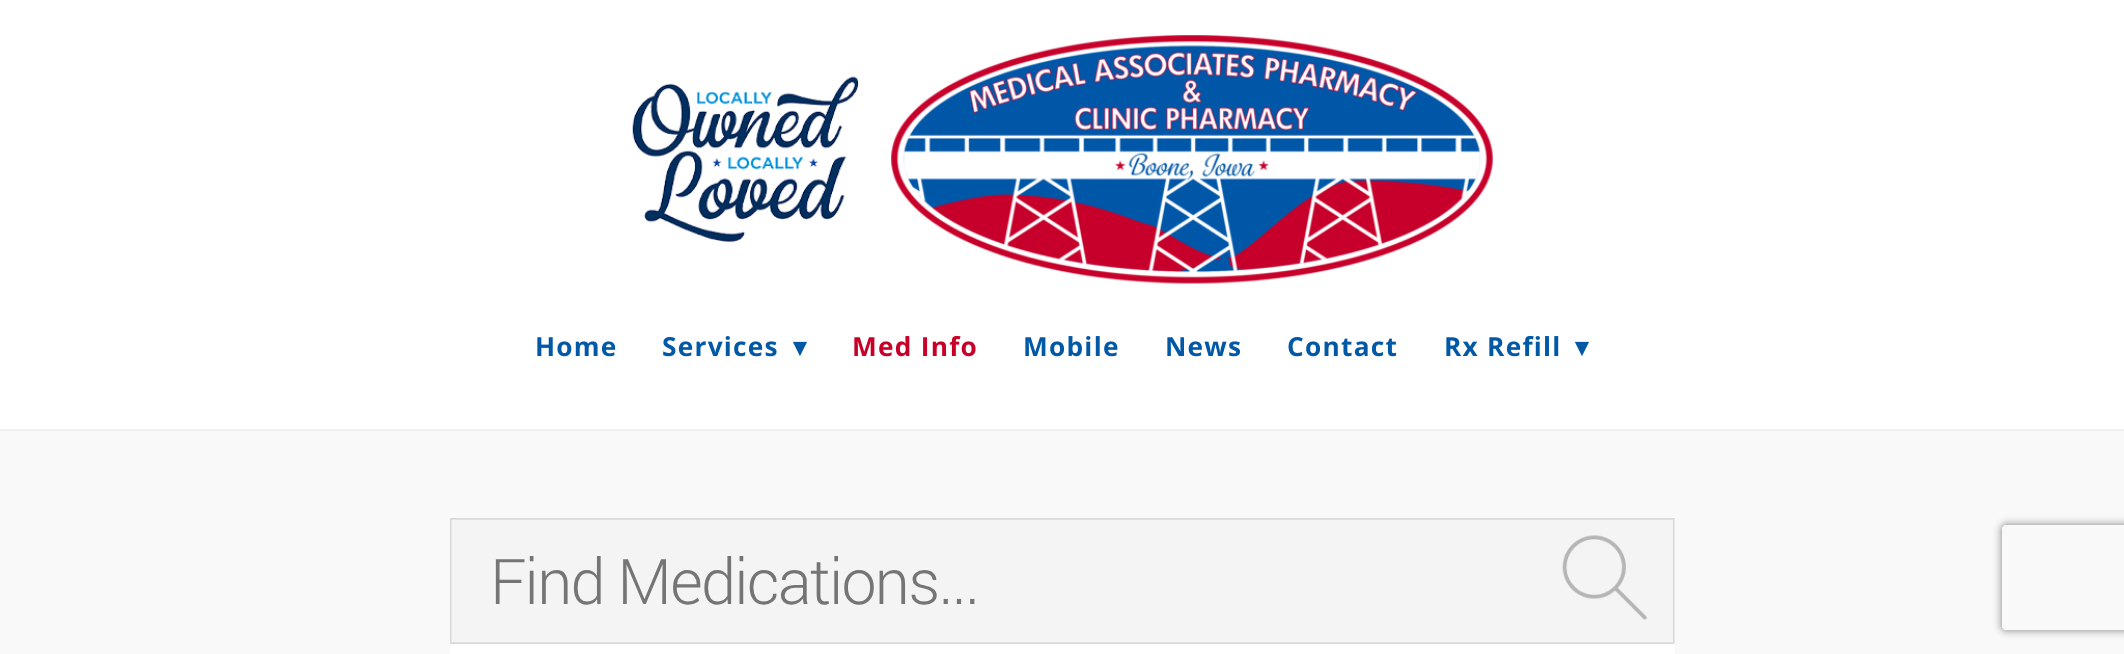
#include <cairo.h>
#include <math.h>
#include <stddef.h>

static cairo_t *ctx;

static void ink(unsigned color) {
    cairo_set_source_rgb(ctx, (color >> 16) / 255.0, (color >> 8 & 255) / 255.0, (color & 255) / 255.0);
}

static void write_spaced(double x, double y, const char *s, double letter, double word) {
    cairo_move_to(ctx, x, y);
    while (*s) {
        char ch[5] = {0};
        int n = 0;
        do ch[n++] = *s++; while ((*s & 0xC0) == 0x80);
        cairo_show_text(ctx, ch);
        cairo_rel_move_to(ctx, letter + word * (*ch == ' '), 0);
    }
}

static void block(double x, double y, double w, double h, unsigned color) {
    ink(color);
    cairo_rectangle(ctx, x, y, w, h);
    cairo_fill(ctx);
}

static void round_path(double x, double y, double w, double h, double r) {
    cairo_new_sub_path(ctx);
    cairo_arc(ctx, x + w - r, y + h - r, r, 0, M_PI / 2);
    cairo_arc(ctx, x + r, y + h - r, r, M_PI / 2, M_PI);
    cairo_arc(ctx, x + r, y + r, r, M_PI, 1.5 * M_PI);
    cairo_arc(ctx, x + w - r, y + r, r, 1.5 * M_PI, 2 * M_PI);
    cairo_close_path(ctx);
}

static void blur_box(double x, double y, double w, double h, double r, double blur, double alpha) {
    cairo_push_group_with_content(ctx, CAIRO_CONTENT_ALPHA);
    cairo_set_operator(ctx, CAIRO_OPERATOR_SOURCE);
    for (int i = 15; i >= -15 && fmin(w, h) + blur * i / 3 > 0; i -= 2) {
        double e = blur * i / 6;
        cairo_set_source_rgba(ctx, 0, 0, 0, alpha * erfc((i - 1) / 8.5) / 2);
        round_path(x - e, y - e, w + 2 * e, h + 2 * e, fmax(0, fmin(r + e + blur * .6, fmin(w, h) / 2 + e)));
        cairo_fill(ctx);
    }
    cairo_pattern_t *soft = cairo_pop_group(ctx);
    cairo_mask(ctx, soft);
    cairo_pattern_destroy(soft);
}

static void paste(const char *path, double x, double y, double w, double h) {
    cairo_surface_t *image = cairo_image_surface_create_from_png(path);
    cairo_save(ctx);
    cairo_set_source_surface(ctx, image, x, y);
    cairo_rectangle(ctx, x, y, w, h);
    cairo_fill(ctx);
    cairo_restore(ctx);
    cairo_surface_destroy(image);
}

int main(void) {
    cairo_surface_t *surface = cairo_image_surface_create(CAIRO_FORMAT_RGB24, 2124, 654);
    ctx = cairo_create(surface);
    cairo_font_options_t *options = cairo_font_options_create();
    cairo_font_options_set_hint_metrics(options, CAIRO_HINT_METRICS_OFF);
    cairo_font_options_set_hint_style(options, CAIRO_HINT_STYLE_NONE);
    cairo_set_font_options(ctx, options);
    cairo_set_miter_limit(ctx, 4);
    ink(0xf9f9f9);
    cairo_paint(ctx);
    block(0, 0, 2124, 429, 0xffffff);
    block(0, 429, 2124, 2, 0xf0f0f0);
    paste("pic1.png", 632, 35, 861, 249);
    cairo_select_font_face(ctx, "Open Sans", CAIRO_FONT_SLANT_NORMAL, CAIRO_FONT_WEIGHT_BOLD);
    cairo_set_font_size(ctx, 26.25);
    ink(0x0058a6);
    write_spaced(535, 356, "Home", 1.25, 0);
    write_spaced(662, 356, "Services", 1.25, 0);
    cairo_select_font_face(ctx, "DejaVu Sans", CAIRO_FONT_SLANT_NORMAL, CAIRO_FONT_WEIGHT_BOLD);
    write_spaced(793, 356, "▾", 1.25, 0);
    cairo_select_font_face(ctx, "Open Sans", CAIRO_FONT_SLANT_NORMAL, CAIRO_FONT_WEIGHT_BOLD);
    ink(0xc70028);
    write_spaced(852, 356, "Med Info", 1.25, 0);
    ink(0x0058a6);
    write_spaced(1023, 356, "Mobile", 1.25, 0);
    write_spaced(1165, 356, "News", 1.25, 0);
    write_spaced(1287, 356, "Contact", 1.25, 0);
    write_spaced(1444, 356, "Rx Refill", 1.25, 0);
    cairo_select_font_face(ctx, "DejaVu Sans", CAIRO_FONT_SLANT_NORMAL, CAIRO_FONT_WEIGHT_BOLD);
    write_spaced(1575, 356, "▾", 1.25, 0);
    paste("pic2.png", 450, 518, 1225, 136);
    cairo_save(ctx);
    cairo_set_fill_rule(ctx, CAIRO_FILL_RULE_EVEN_ODD);
    cairo_new_path(ctx);
    cairo_move_to(ctx, 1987, 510);
    cairo_line_to(ctx, 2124, 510);
    cairo_line_to(ctx, 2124, 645);
    cairo_line_to(ctx, 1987, 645);
    cairo_close_path(ctx);
    cairo_move_to(ctx, 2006, 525);
    cairo_line_to(ctx, 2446, 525);
    cairo_curve_to(ctx, 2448, 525, 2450, 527, 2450, 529);
    cairo_line_to(ctx, 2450, 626);
    cairo_curve_to(ctx, 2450, 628, 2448, 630, 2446, 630);
    cairo_line_to(ctx, 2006, 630);
    cairo_curve_to(ctx, 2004, 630, 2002, 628, 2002, 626);
    cairo_line_to(ctx, 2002, 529);
    cairo_curve_to(ctx, 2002, 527, 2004, 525, 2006, 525);
    cairo_close_path(ctx);
    cairo_clip(ctx);
    ink(0x808080);
    blur_box(2002, 525, 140, 105, 4, 4.5, 1);
    cairo_restore(ctx);
    cairo_surface_write_to_png(surface, "screenshot.png");
    cairo_font_options_destroy(options);
    cairo_destroy(ctx);
    cairo_surface_destroy(surface);
    return 0;
}
